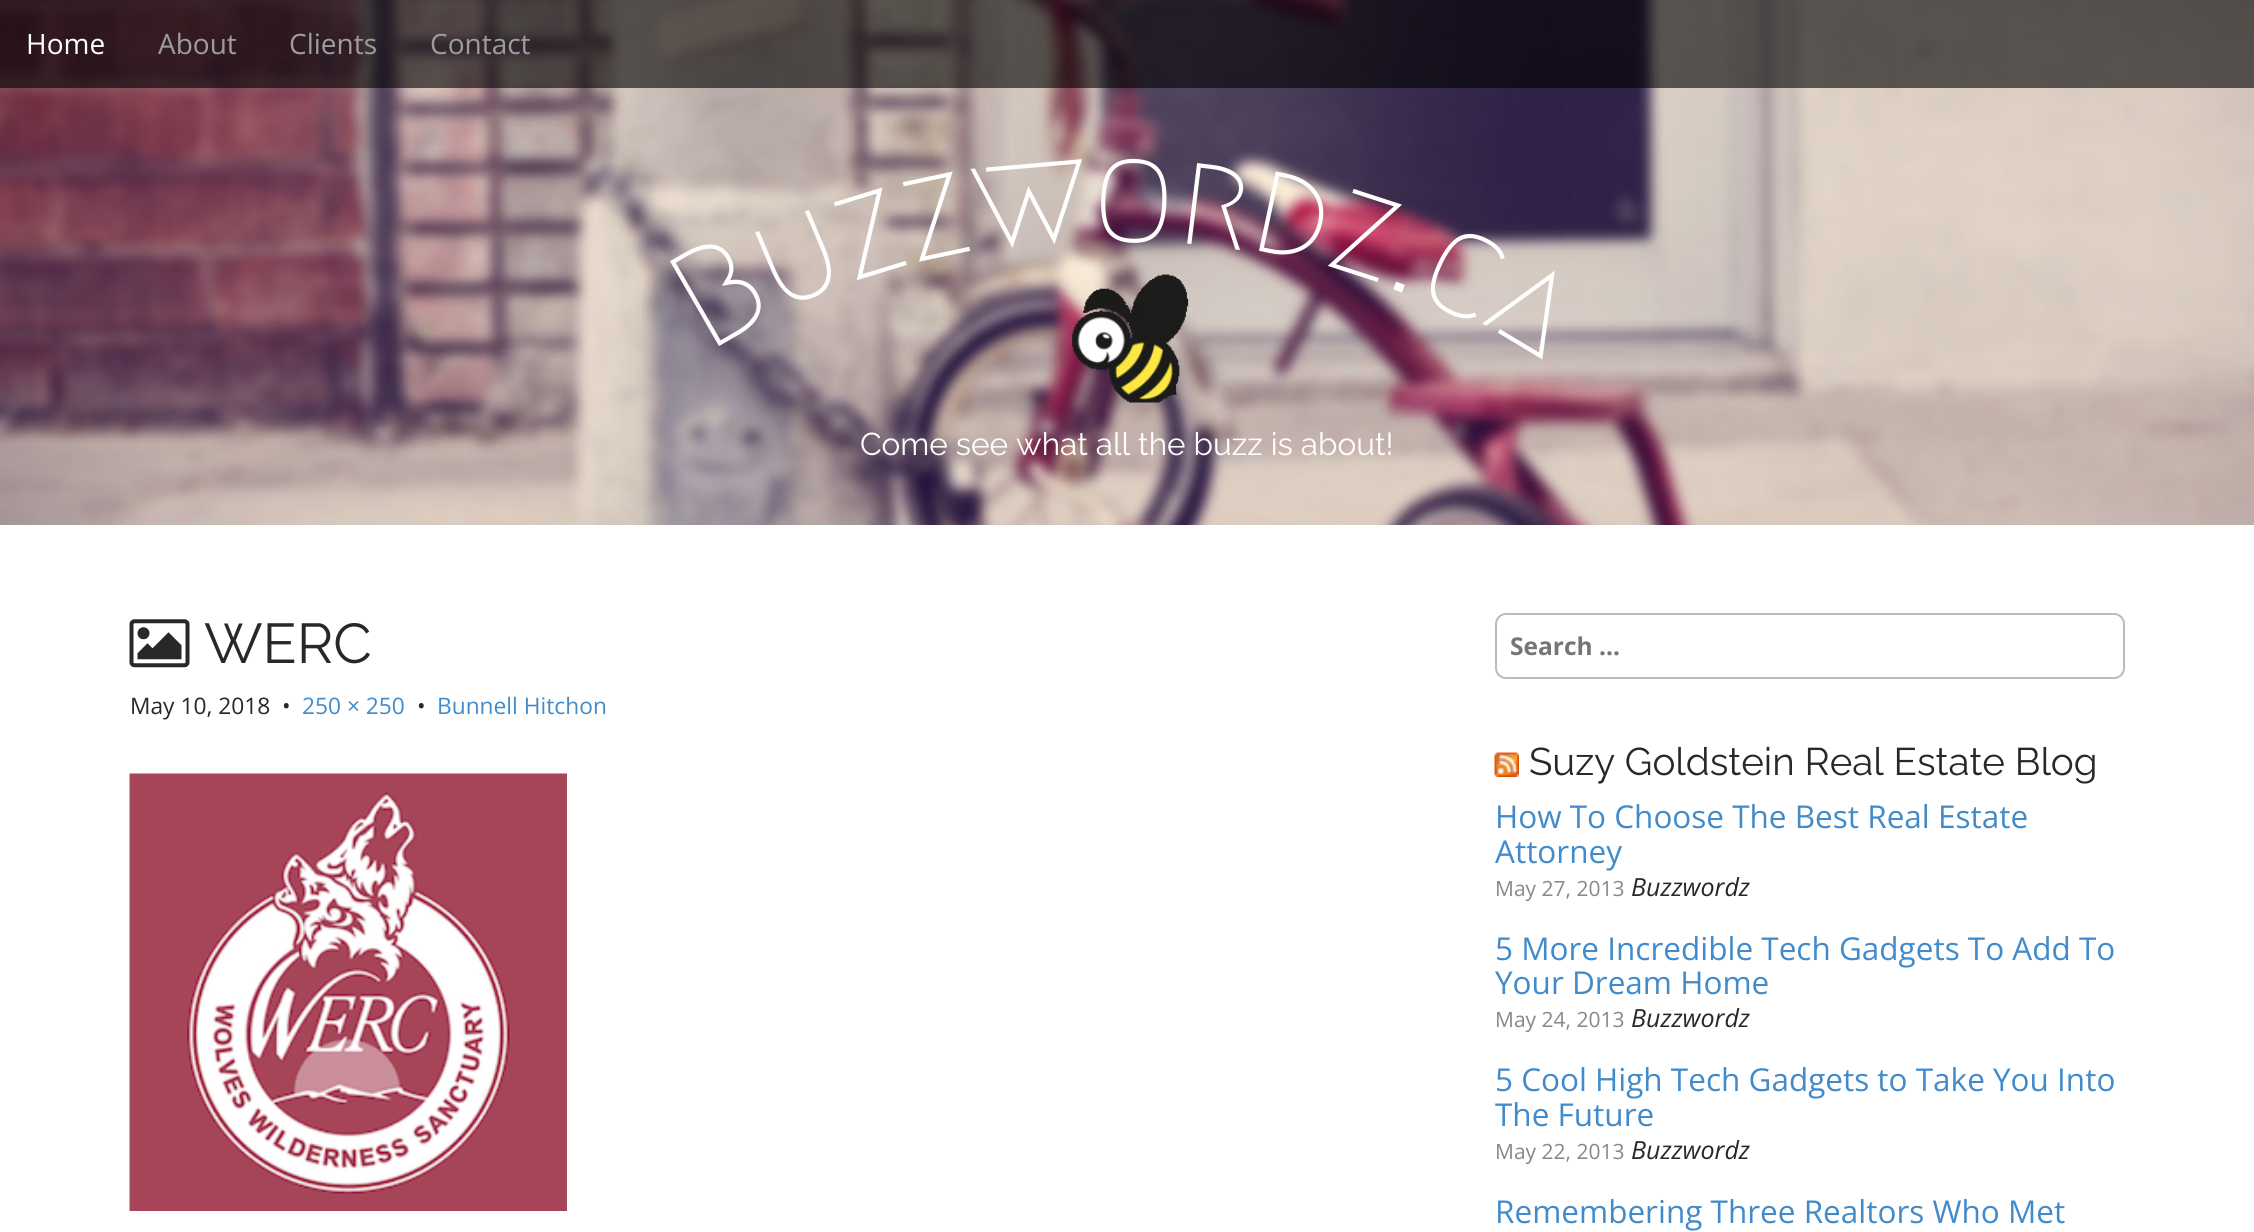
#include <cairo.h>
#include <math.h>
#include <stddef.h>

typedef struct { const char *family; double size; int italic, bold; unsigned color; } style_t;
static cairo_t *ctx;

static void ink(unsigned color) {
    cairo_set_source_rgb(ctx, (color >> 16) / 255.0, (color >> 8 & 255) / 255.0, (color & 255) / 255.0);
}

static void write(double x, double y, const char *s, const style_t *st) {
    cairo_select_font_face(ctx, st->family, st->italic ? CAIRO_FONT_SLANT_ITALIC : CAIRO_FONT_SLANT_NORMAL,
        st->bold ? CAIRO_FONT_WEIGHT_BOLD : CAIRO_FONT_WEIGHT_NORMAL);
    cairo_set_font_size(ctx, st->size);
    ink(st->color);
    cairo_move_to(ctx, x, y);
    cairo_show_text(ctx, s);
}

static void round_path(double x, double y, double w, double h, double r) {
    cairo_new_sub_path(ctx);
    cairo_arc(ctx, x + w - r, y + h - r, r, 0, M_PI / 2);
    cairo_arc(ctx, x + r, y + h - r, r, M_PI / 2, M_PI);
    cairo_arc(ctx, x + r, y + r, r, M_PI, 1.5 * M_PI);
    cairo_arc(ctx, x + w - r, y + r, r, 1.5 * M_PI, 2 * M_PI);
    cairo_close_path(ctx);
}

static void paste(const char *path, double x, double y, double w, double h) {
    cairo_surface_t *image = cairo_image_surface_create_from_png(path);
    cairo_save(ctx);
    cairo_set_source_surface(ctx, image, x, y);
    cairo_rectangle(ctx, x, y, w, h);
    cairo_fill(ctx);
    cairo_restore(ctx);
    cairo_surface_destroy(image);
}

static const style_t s1 = {"Open Sans", 28, 0, 0, 0xffffff};
static const style_t s2 = {"Open Sans", 28, 0, 0, 0x9d9d9d};
static const style_t s3 = {"Megrim Medium", 140, 0, 0, 0xffffff};
static const style_t s4 = {"Raleway Thin", 31.5, 0, 0, 0xffffff};
static const style_t s5 = {"Raleway Thin", 56, 0, 0, 0x282828};
static const style_t s6 = {"Open Sans", 22.75, 0, 0, 0x282828};
static const style_t s7 = {"Open Sans", 22.75, 0, 0, 0x428bca};
static const style_t s8 = {"Open Sans", 24.5, 0, 1, 0x757575};
static const style_t s9 = {"Raleway Thin", 38.5, 0, 0, 0x282828};
static const style_t s10 = {"Open Sans", 31.5, 0, 0, 0x428bca};
static const style_t s11 = {"Open Sans", 21, 0, 0, 0x888888};
static const style_t s12 = {"Open Sans", 25, 1, 0, 0x282828};

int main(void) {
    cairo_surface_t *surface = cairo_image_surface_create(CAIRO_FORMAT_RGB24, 2254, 1232);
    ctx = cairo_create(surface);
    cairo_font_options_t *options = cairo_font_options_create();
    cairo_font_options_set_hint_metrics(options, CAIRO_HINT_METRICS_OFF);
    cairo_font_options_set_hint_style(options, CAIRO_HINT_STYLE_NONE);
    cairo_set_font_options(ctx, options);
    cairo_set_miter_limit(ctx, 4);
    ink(0xffffff);
    cairo_paint(ctx);
    paste("pic1.png", 0, 0, 2254, 525);
    cairo_set_source_rgba(ctx, 0, 0, 0, 0.6);
    cairo_rectangle(ctx, 0, 0, 2254, 88);
    cairo_fill(ctx);
    write(26, 54, "Home", &s1);
    write(158, 54, "About", &s2);
    write(289, 54, "Clients", &s2);
    write(430, 54, "Contact", &s2);
    cairo_save(ctx);
    cairo_translate(ctx, 707, 353);
    cairo_rotate(ctx, -30 * M_PI / 180);
    write(0, 0, "B", &s3);
    cairo_restore(ctx);
    cairo_save(ctx);
    cairo_translate(ctx, 776, 312);
    cairo_rotate(ctx, -23 * M_PI / 180);
    write(0, 0, "u", &s3);
    cairo_restore(ctx);
    cairo_save(ctx);
    cairo_translate(ctx, 851, 282);
    cairo_rotate(ctx, -17 * M_PI / 180);
    write(0, 0, "z", &s3);
    cairo_restore(ctx);
    cairo_save(ctx);
    cairo_translate(ctx, 913, 263);
    cairo_rotate(ctx, -12 * M_PI / 180);
    write(0, 0, "z", &s3);
    cairo_restore(ctx);
    cairo_save(ctx);
    cairo_translate(ctx, 975, 250);
    cairo_rotate(ctx, -5 * M_PI / 180);
    write(0, 0, "w", &s3);
    cairo_restore(ctx);
    cairo_save(ctx);
    cairo_translate(ctx, 1090, 240);
    cairo_rotate(ctx, 2 * M_PI / 180);
    write(0, 0, "o", &s3);
    cairo_restore(ctx);
    cairo_save(ctx);
    cairo_translate(ctx, 1174, 242);
    cairo_rotate(ctx, 7 * M_PI / 180);
    write(0, 0, "r", &s3);
    cairo_restore(ctx);
    cairo_save(ctx);
    cairo_translate(ctx, 1246, 248);
    cairo_rotate(ctx, 12 * M_PI / 180);
    write(0, 0, "d", &s3);
    cairo_restore(ctx);
    cairo_save(ctx);
    cairo_translate(ctx, 1322, 264);
    cairo_rotate(ctx, 18 * M_PI / 180);
    write(0, 0, "z", &s3);
    cairo_restore(ctx);
    cairo_save(ctx);
    cairo_translate(ctx, 1412, 294);
    cairo_rotate(ctx, 26 * M_PI / 180);
    write(0, 0, "c", &s3);
    cairo_restore(ctx);
    cairo_save(ctx);
    cairo_translate(ctx, 1480, 322);
    cairo_rotate(ctx, 31 * M_PI / 180);
    write(0, 0, "a", &s3);
    cairo_restore(ctx);
    cairo_save(ctx);
    cairo_translate(ctx, 1383, 285);
    cairo_rotate(ctx, 22 * M_PI / 180);
    write(0, 0, ".", &s3);
    cairo_restore(ctx);
    paste("pic2.png", 1072, 274, 117, 129);
    write(860, 455, "Come see what all the buzz is about!", &s4);
    paste("pic3.png", 129, 619, 61, 49);
    write(204, 663, "WERC", &s5);
    write(130, 714, "May 10, 2018", &s6);
    write(282, 714, "•", &s6);
    write(302, 714, "250 × 250", &s7);
    write(417, 714, "•", &s6);
    write(437, 714, "Bunnell Hitchon", &s7);
    paste("pic4.png", 129, 773, 438, 438);
    round_path(1496, 614, 628, 64, 10);
    ink(0xbbbbbb);
    cairo_stroke(ctx);
    write(1510, 655, "Search …", &s8);
    paste("pic5.png", 1494, 752, 25, 25);
    write(1529, 775, "Suzy Goldstein Real Estate Blog", &s9);
    write(1495, 828, "How To Choose The Best Real Estate", &s10);
    write(1495, 863, "Attorney", &s10);
    write(1495, 896, "May 27, 2013", &s11);
    write(1631, 896, "Buzzwordz", &s12);
    write(1495, 960, "5 More Incredible Tech Gadgets To Add To", &s10);
    write(1495, 994, "Your Dream Home", &s10);
    write(1495, 1027, "May 24, 2013", &s11);
    write(1631, 1027, "Buzzwordz", &s12);
    write(1495, 1091, "5 Cool High Tech Gadgets to Take You Into", &s10);
    write(1495, 1126, "The Future", &s10);
    write(1495, 1159, "May 22, 2013", &s11);
    write(1631, 1159, "Buzzwordz", &s12);
    write(1495, 1223, "Remembering Three Realtors Who Met", &s10);
    cairo_surface_write_to_png(surface, "screenshot.png");
    cairo_font_options_destroy(options);
    cairo_destroy(ctx);
    cairo_surface_destroy(surface);
    return 0;
}
